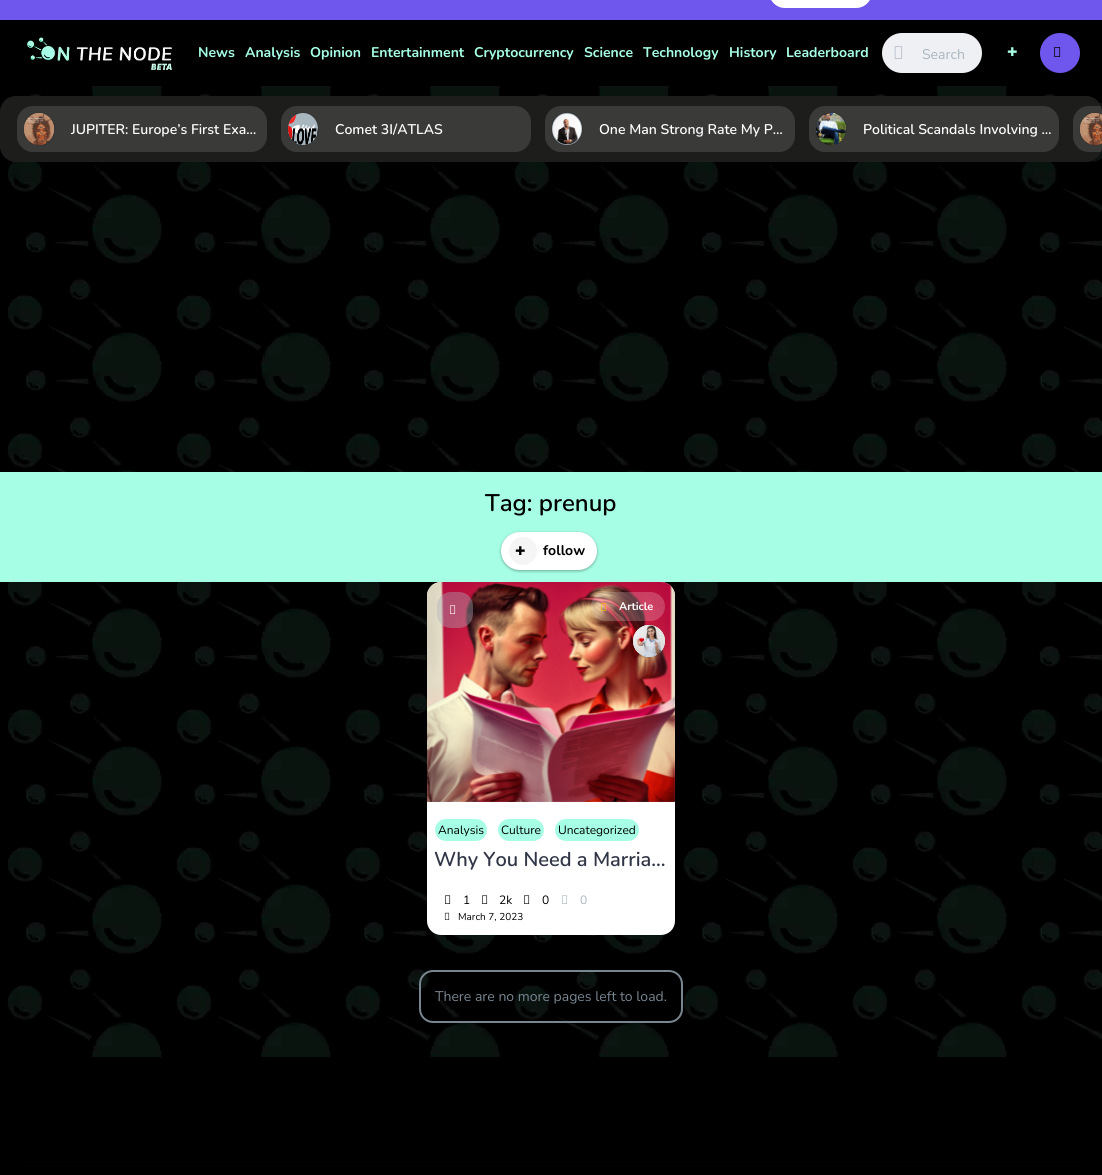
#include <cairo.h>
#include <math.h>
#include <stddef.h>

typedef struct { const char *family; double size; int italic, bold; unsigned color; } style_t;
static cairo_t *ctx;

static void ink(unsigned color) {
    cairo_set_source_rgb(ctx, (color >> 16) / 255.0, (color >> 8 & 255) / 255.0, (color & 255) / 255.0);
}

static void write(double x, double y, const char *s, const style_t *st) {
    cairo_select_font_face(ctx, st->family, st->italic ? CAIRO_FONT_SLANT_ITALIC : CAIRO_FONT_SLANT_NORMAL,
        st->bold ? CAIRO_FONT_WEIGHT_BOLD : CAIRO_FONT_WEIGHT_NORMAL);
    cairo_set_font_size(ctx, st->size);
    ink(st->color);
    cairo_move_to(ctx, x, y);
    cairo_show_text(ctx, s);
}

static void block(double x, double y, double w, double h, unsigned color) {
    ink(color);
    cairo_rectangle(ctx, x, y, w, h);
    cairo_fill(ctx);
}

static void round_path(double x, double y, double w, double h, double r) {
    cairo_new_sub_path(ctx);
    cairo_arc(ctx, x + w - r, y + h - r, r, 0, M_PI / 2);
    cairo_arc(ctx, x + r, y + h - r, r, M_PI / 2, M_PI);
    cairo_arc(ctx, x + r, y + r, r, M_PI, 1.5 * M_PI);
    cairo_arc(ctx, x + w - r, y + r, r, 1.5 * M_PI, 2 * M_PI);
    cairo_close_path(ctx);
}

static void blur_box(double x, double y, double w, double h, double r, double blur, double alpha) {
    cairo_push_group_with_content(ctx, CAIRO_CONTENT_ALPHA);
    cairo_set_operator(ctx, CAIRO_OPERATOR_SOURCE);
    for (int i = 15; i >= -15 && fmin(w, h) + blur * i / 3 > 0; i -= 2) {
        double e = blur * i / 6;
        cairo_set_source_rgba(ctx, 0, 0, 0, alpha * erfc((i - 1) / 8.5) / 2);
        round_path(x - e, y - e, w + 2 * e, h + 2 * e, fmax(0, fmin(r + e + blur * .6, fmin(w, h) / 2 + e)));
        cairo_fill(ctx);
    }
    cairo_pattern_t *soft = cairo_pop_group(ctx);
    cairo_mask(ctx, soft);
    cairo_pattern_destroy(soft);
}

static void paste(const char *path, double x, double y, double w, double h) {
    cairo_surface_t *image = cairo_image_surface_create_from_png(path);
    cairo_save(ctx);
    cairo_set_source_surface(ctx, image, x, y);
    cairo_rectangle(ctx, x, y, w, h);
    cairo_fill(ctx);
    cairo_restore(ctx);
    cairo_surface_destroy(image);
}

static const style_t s1 = {"Nunito", 14, 0, 1, 0xa6ffe5};
static const style_t s2 = {"Nunito", 14, 0, 0, 0xa8b6c0};
static const style_t s3 = {"Noto Sans Black", 18, 0, 0, 0xa6ffe5};
static const style_t s4 = {"Nunito SemiBold", 14, 0, 0, 0xffffff};
static const style_t s5 = {"Nunito SemiBold", 24, 0, 0, 0x000000};
static const style_t s6 = {"Noto Sans Black", 18, 0, 0, 0x000000};
static const style_t s7 = {"Nunito", 14, 0, 1, 0x000000};
static const style_t s8 = {"Nunito", 11, 0, 1, 0xffffff};
static const style_t s9 = {"Nunito", 12, 0, 0, 0x000000};
static const style_t s10 = {"Nunito SemiBold", 20, 0, 0, 0x313647};
static const style_t s11 = {"Nunito", 12, 0, 0, 0xa8b6c0};
static const style_t s12 = {"Nunito", 10, 0, 0, 0x000000};
static const style_t s13 = {"Nunito", 14, 0, 0, 0x788691};

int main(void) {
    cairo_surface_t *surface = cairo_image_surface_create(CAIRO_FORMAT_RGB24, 1102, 1175);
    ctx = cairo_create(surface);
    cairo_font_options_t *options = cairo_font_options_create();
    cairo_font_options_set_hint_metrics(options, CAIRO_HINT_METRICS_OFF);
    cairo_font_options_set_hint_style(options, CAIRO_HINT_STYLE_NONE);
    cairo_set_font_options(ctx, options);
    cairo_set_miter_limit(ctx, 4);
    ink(0xffffff);
    cairo_paint(ctx);
    paste("pic1.png", 0, 86, 1102, 971);
    block(0, 0, 1102, 20, 0x6f56ec);
    ink(0xffffff);
    round_path(769, -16, 103, 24, 16);
    cairo_fill(ctx);
    block(0, 20, 1102, 66, 0x000000);
    paste("pic2.png", 26, 37, 146, 34);
    write(198, 57, "News", &s1);
    write(245, 57, "Analysis", &s1);
    write(310, 57, "Opinion", &s1);
    write(371, 57, "Entertainment", &s1);
    write(474, 57, "Cryptocurrency", &s1);
    write(584, 57, "Science", &s1);
    write(643, 57, "Technology", &s1);
    write(729, 57, "History", &s1);
    write(786, 57, "Leaderboard", &s1);
    ink(0xeef0f3);
    round_path(882, 33, 100, 40, 20);
    cairo_fill(ctx);
    paste("pic3.png", 894, 46, 9, 13);
    write(922, 59, "Search", &s2);
    write(1007, 58, "+", &s3);
    ink(0x6f56ec);
    cairo_new_path(ctx);
    cairo_arc(ctx, 1060, 53, 20, 0, 2 * M_PI);
    cairo_fill(ctx);
    paste("pic4.png", 1054, 47, 7, 10);
    ink(0x1d1e1c);
    round_path(0, 96, 1102, 66, 16);
    cairo_fill(ctx);
    ink(0x3a3a39);
    round_path(17, 106, 250, 46, 16);
    cairo_fill(ctx);
    ink(0x000000);
    blur_box(24, 113, 30, 32, 15, 1, 0.2);
    paste("pic5.png", 24, 113, 30, 32);
    paste("pic6.png", 24, 113, 30, 32);
    write(71, 134, "JUPITER: Europe’s First Exa…", &s4);
    ink(0x3a3a39);
    round_path(281, 106, 250, 46, 16);
    cairo_fill(ctx);
    ink(0x000000);
    blur_box(288, 113, 30, 32, 15, 1, 0.2);
    ink(0xa8b6c0);
    cairo_new_path(ctx);
    cairo_move_to(ctx, 303, 113);
    cairo_curve_to(ctx, 311.5, 113, 318, 120, 318, 129);
    cairo_curve_to(ctx, 318, 138, 311.5, 145, 303, 145);
    cairo_curve_to(ctx, 294.5, 145, 288, 138, 288, 129);
    cairo_curve_to(ctx, 288, 120, 294.5, 113, 303, 113);
    cairo_close_path(ctx);
    cairo_fill(ctx);
    paste("pic7.png", 288, 115, 30, 30);
    paste("pic8.png", 288, 115, 30, 30);
    write(335, 134, "Comet 3I/ATLAS", &s4);
    ink(0x3a3a39);
    round_path(545, 106, 250, 46, 16);
    cairo_fill(ctx);
    ink(0x000000);
    blur_box(552, 113, 30, 32, 15, 1, 0.2);
    ink(0xa8b6c0);
    cairo_new_path(ctx);
    cairo_move_to(ctx, 567, 113);
    cairo_curve_to(ctx, 575.5, 113, 582, 120, 582, 129);
    cairo_curve_to(ctx, 582, 138, 575.5, 145, 567, 145);
    cairo_curve_to(ctx, 558.5, 145, 552, 138, 552, 129);
    cairo_curve_to(ctx, 552, 120, 558.5, 113, 567, 113);
    cairo_close_path(ctx);
    cairo_fill(ctx);
    paste("pic9.png", 552, 114, 30, 31);
    paste("pic10.png", 552, 114, 30, 31);
    write(599, 134, "One Man Strong Rate My P…", &s4);
    ink(0x3a3a39);
    round_path(809, 106, 250, 46, 16);
    cairo_fill(ctx);
    ink(0x000000);
    blur_box(816, 113, 30, 32, 15, 1, 0.2);
    paste("pic11.png", 816, 113, 30, 32);
    paste("pic12.png", 816, 113, 30, 32);
    write(863, 134, "Political Scandals Involving …", &s4);
    cairo_save(ctx);
    round_path(0, 96, 1102, 66, 16);
    cairo_clip(ctx);
    cairo_set_source_rgba(ctx, 0.365, 0.365, 0.365, 0.45);
    cairo_new_path(ctx);
    cairo_move_to(ctx, 1089, 106);
    cairo_line_to(ctx, 1102, 106);
    cairo_line_to(ctx, 1102, 152);
    cairo_line_to(ctx, 1089, 152);
    cairo_curve_to(ctx, 1080, 152, 1073, 145, 1073, 136);
    cairo_line_to(ctx, 1073, 122);
    cairo_curve_to(ctx, 1073, 113, 1080, 106, 1089, 106);
    cairo_close_path(ctx);
    cairo_fill(ctx);
    cairo_restore(ctx);
    ink(0x000000);
    blur_box(1080, 113, 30, 32, 15, 1, 0.2);
    paste("pic13.png", 1080, 113, 22, 32);
    paste("pic14.png", 1080, 113, 22, 32);
    block(0, 472, 1102, 110, 0xa6ffe5);
    write(485, 511, "Tag: prenup", &s5);
    ink(0x000000);
    blur_box(501, 533, 96, 38, 19, 1.5, 0.24);
    blur_box(501, 533, 96, 38, 19, 1.5, 0.12);
    ink(0xffffff);
    round_path(501, 532, 96, 38, 19);
    cairo_fill(ctx);
    ink(0xf5f5f5);
    cairo_arc(ctx, 523, 551, 14, 0, 2 * M_PI);
    cairo_fill(ctx);
    write(515, 557, "+", &s6);
    write(543, 555, "follow", &s7);
    ink(0xffffff);
    round_path(427, 582, 248, 353, 14);
    cairo_fill(ctx);
    paste("pic15.png", 427, 582, 248, 220);
    cairo_set_source_rgba(ctx, 0.671, 0.682, 0.741, 0.4);
    round_path(437, 592, 36, 36, 14);
    cairo_fill(ctx);
    paste("pic16.png", 450, 605, 6, 9);
    cairo_set_source_rgba(ctx, 1, 1, 1, 0.2);
    round_path(591, 592, 74, 29, 14.5);
    cairo_fill(ctx);
    paste("pic17.png", 601, 603, 5, 8);
    write(619, 610, "Article", &s8);
    ink(0x000000);
    blur_box(633, 625, 32, 32, 16, 1, 0.2);
    paste("pic18.png", 633, 625, 32, 32);
    paste("pic19.png", 633, 625, 32, 32);
    ink(0xa6ffe5);
    round_path(435, 819, 52, 22, 11);
    cairo_fill(ctx);
    write(438, 834, "Analysis", &s9);
    ink(0xa6ffe5);
    round_path(498, 819, 46, 22, 11);
    cairo_fill(ctx);
    write(501, 834, "Culture", &s9);
    ink(0xa6ffe5);
    round_path(555, 819, 84, 22, 11);
    cairo_fill(ctx);
    write(558, 834, "Uncategorized", &s9);
    write(434, 866, "Why You Need a Marria…", &s10);
    paste("pic20.png", 445, 895, 6, 9);
    write(463, 904, "1", &s9);
    paste("pic20.png", 482, 895, 6, 9);
    write(499, 904, "2k", &s9);
    paste("pic20.png", 524, 895, 6, 9);
    write(542, 904, "0", &s9);
    paste("pic21.png", 562, 895, 6, 9);
    write(580, 904, "0", &s11);
    paste("pic22.png", 444, 912, 6, 8);
    write(458, 920, "March 7, 2023", &s12);
    round_path(420, 971, 262, 51, 13);
    ink(0x788691);
    cairo_stroke(ctx);
    write(435, 1001, "There are no more pages left to load.", &s13);
    block(0, 1057, 1102, 118, 0x000000);
    block(22, 1165, 1058, 1, 0x030303);
    cairo_surface_write_to_png(surface, "screenshot.png");
    cairo_font_options_destroy(options);
    cairo_destroy(ctx);
    cairo_surface_destroy(surface);
    return 0;
}
